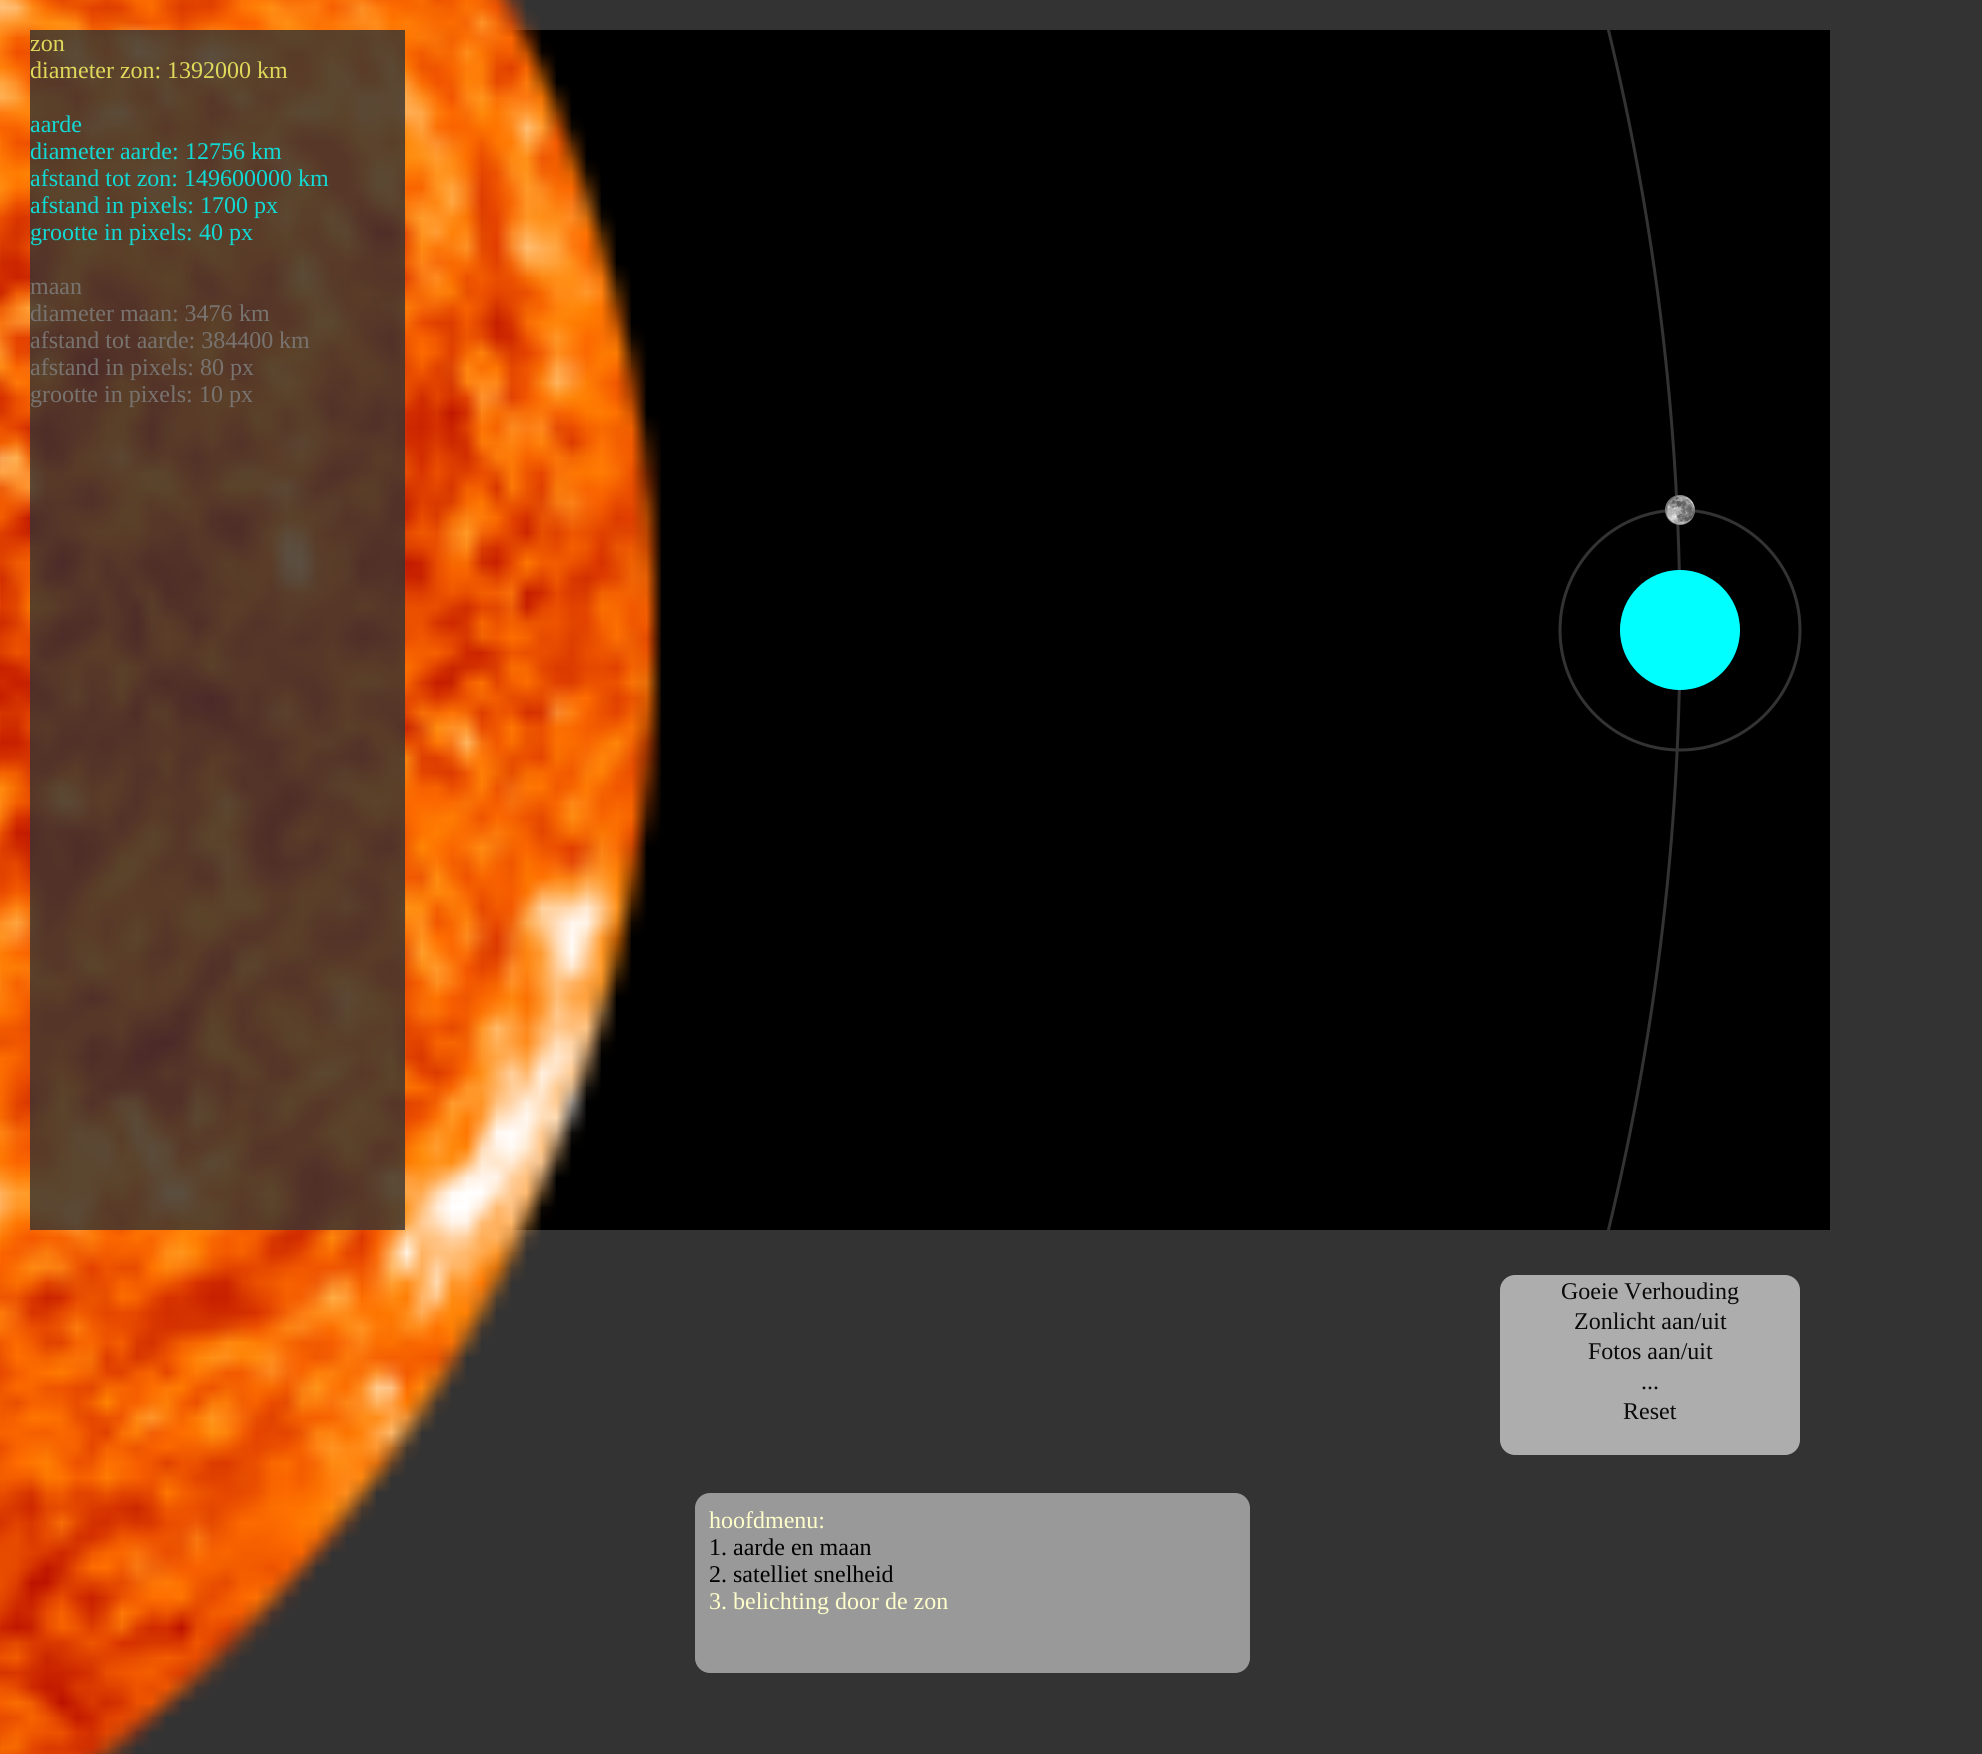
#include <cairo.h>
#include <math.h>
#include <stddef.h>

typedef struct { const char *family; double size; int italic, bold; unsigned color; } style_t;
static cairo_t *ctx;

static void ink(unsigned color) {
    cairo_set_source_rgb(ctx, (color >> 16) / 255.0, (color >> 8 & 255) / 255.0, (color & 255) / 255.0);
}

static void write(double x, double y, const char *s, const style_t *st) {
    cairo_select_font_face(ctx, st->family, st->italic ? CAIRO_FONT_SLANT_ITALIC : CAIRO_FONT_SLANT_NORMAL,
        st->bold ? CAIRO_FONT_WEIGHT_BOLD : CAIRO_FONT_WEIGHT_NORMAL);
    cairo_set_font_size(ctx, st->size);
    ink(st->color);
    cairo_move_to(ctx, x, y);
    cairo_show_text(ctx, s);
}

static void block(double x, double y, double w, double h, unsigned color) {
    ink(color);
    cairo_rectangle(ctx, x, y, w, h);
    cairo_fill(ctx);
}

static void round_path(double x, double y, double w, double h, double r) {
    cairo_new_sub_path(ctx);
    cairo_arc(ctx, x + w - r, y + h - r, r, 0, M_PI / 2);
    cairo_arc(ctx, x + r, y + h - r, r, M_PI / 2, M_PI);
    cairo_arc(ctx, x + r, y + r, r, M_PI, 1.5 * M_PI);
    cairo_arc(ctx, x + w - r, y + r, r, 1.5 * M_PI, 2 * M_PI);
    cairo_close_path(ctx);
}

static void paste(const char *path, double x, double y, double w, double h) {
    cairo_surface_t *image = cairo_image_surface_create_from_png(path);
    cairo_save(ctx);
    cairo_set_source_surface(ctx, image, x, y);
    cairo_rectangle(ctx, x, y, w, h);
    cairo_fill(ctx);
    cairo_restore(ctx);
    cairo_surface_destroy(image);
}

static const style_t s1 = {"Liberation Serif", 24, 0, 0, 0xded95a};
static const style_t s2 = {"Liberation Serif", 24, 0, 0, 0x12d9d4};
static const style_t s3 = {"Liberation Serif", 24, 0, 0, 0x78736f};
static const style_t s4 = {"Liberation Serif", 24, 0, 0, 0x0a0a0a};
static const style_t s5 = {"Liberation Serif", 24, 0, 0, 0xffffcc};
static const style_t s6 = {"Liberation Serif", 24, 0, 0, 0x000000};

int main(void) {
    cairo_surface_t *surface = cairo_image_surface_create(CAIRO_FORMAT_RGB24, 1982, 1754);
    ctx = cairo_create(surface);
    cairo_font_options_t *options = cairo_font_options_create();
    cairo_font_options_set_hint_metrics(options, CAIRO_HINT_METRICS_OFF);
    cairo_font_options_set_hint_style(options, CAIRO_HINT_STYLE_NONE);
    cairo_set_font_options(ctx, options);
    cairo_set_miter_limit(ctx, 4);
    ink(0x333333);
    cairo_paint(ctx);
    block(497, 30, 1333, 1200, 0x000000);
    paste("pic1.png", 0, 0, 661, 1754);
    cairo_save(ctx);
    cairo_rectangle(ctx, 30, 30, 1800, 1200);
    cairo_clip(ctx);
    cairo_arc(ctx, -870, 630, 2550, 0, 2 * M_PI);
    ink(0x333333);
    cairo_set_line_width(ctx, 3);
    cairo_stroke(ctx);
    cairo_restore(ctx);
    ink(0x00ffff);
    cairo_arc(ctx, 1680, 630, 60, 0, 2 * M_PI);
    cairo_fill(ctx);
    cairo_arc(ctx, 1680, 630, 120, 0, 2 * M_PI);
    ink(0x333333);
    cairo_set_line_width(ctx, 3);
    cairo_stroke(ctx);
    ink(0x808080);
    cairo_arc(ctx, 1680, 510, 15, 0, 2 * M_PI);
    cairo_fill(ctx);
    paste("pic2.png", 1665, 495, 30, 30);
    cairo_set_source_rgba(ctx, 0.2, 0.2, 0.2, 0.8);
    cairo_rectangle(ctx, 30, 30, 375, 1200);
    cairo_fill(ctx);
    write(30, 51, "zon", &s1);
    write(30, 78, "diameter zon:", &s1);
    write(167, 78, "1392000", &s1);
    write(257, 78, "km", &s1);
    write(30, 132, "aarde", &s2);
    write(30, 159, "diameter aarde:", &s2);
    write(185, 159, "12756 km", &s2);
    write(30, 186, "afstand tot zon:", &s2);
    write(184, 186, "149600000 km", &s2);
    write(30, 213, "afstand in pixels:", &s2);
    write(200, 213, "1700", &s2);
    write(254, 213, "px", &s2);
    write(30, 240, "grootte in pixels:", &s2);
    write(199, 240, "40", &s2);
    write(229, 240, "px", &s2);
    write(30, 294, "maan", &s3);
    write(30, 321, "diameter maan: 3476", &s3);
    write(239, 321, "km", &s3);
    write(30, 348, "afstand tot aarde: 384400", &s3);
    write(279, 348, "km", &s3);
    write(30, 375, "afstand in pixels:", &s3);
    write(200, 375, "80", &s3);
    write(230, 375, "px", &s3);
    write(30, 402, "grootte in pixels:", &s3);
    write(199, 402, "10", &s3);
    write(229, 402, "px", &s3);
    ink(0xadadad);
    round_path(1500, 1275, 300, 180, 15);
    cairo_fill(ctx);
    write(1561, 1299, "Goeie Verhouding", &s4);
    write(1574, 1329, "Zonlicht aan/uit", &s4);
    write(1588, 1359, "Fotos aan/uit", &s4);
    write(1641, 1389, "...", &s4);
    write(1623, 1419, "Reset", &s4);
    ink(0x999999);
    round_path(695, 1493, 555, 180, 15);
    cairo_fill(ctx);
    write(709, 1528, "hoofdmenu:", &s5);
    write(709, 1555, "1. aarde en maan", &s6);
    write(709, 1582, "2. satelliet snelheid", &s6);
    write(709, 1609, "3. belichting door de zon", &s5);
    cairo_surface_write_to_png(surface, "screenshot.png");
    cairo_font_options_destroy(options);
    cairo_destroy(ctx);
    cairo_surface_destroy(surface);
    return 0;
}
